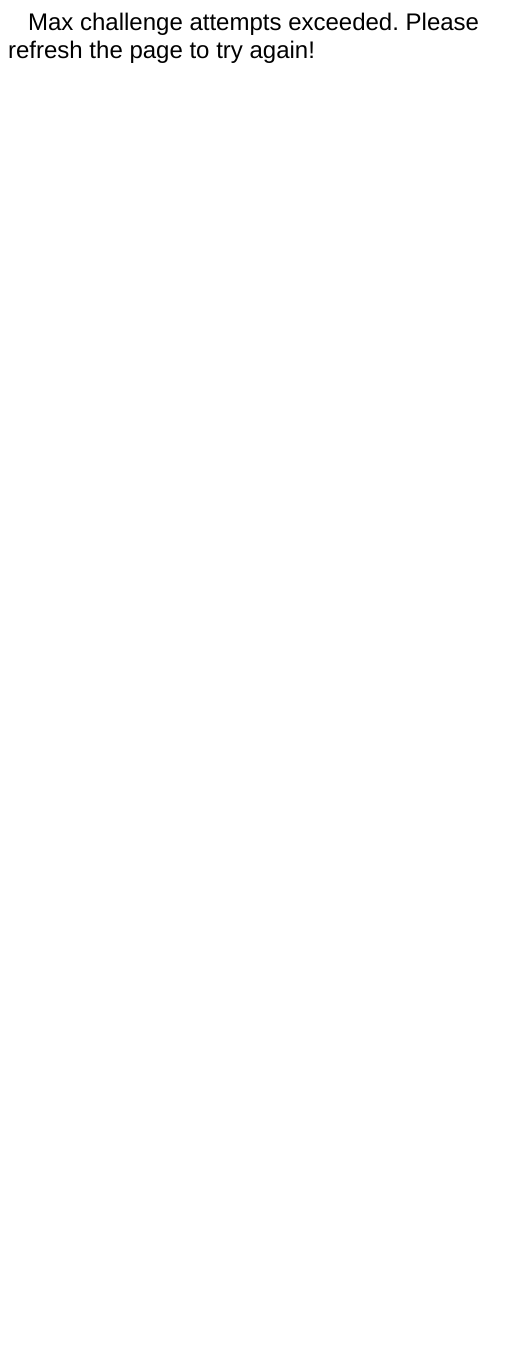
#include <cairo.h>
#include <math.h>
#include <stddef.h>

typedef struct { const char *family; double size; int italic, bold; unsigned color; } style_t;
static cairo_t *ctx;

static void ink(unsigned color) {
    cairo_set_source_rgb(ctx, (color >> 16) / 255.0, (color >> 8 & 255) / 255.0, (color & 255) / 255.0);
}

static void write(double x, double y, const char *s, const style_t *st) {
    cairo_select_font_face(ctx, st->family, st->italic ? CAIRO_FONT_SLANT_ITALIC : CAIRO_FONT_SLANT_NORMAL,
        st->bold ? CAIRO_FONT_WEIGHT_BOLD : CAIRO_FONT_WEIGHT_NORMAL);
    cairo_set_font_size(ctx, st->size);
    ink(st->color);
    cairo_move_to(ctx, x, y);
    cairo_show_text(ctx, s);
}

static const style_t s1 = {"Liberation Sans", 24, 0, 0, 0x000000};

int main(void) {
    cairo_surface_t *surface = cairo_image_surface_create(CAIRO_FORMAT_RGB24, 509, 1347);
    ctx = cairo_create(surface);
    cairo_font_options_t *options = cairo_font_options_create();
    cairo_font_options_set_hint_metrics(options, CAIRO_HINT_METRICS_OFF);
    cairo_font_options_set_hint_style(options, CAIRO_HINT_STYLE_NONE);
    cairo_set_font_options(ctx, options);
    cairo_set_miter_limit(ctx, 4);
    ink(0xffffff);
    cairo_paint(ctx);
    write(28, 30, "Max challenge attempts exceeded. Please", &s1);
    write(8, 58, "refresh the page to try again!", &s1);
    cairo_surface_write_to_png(surface, "screenshot.png");
    cairo_font_options_destroy(options);
    cairo_destroy(ctx);
    cairo_surface_destroy(surface);
    return 0;
}
